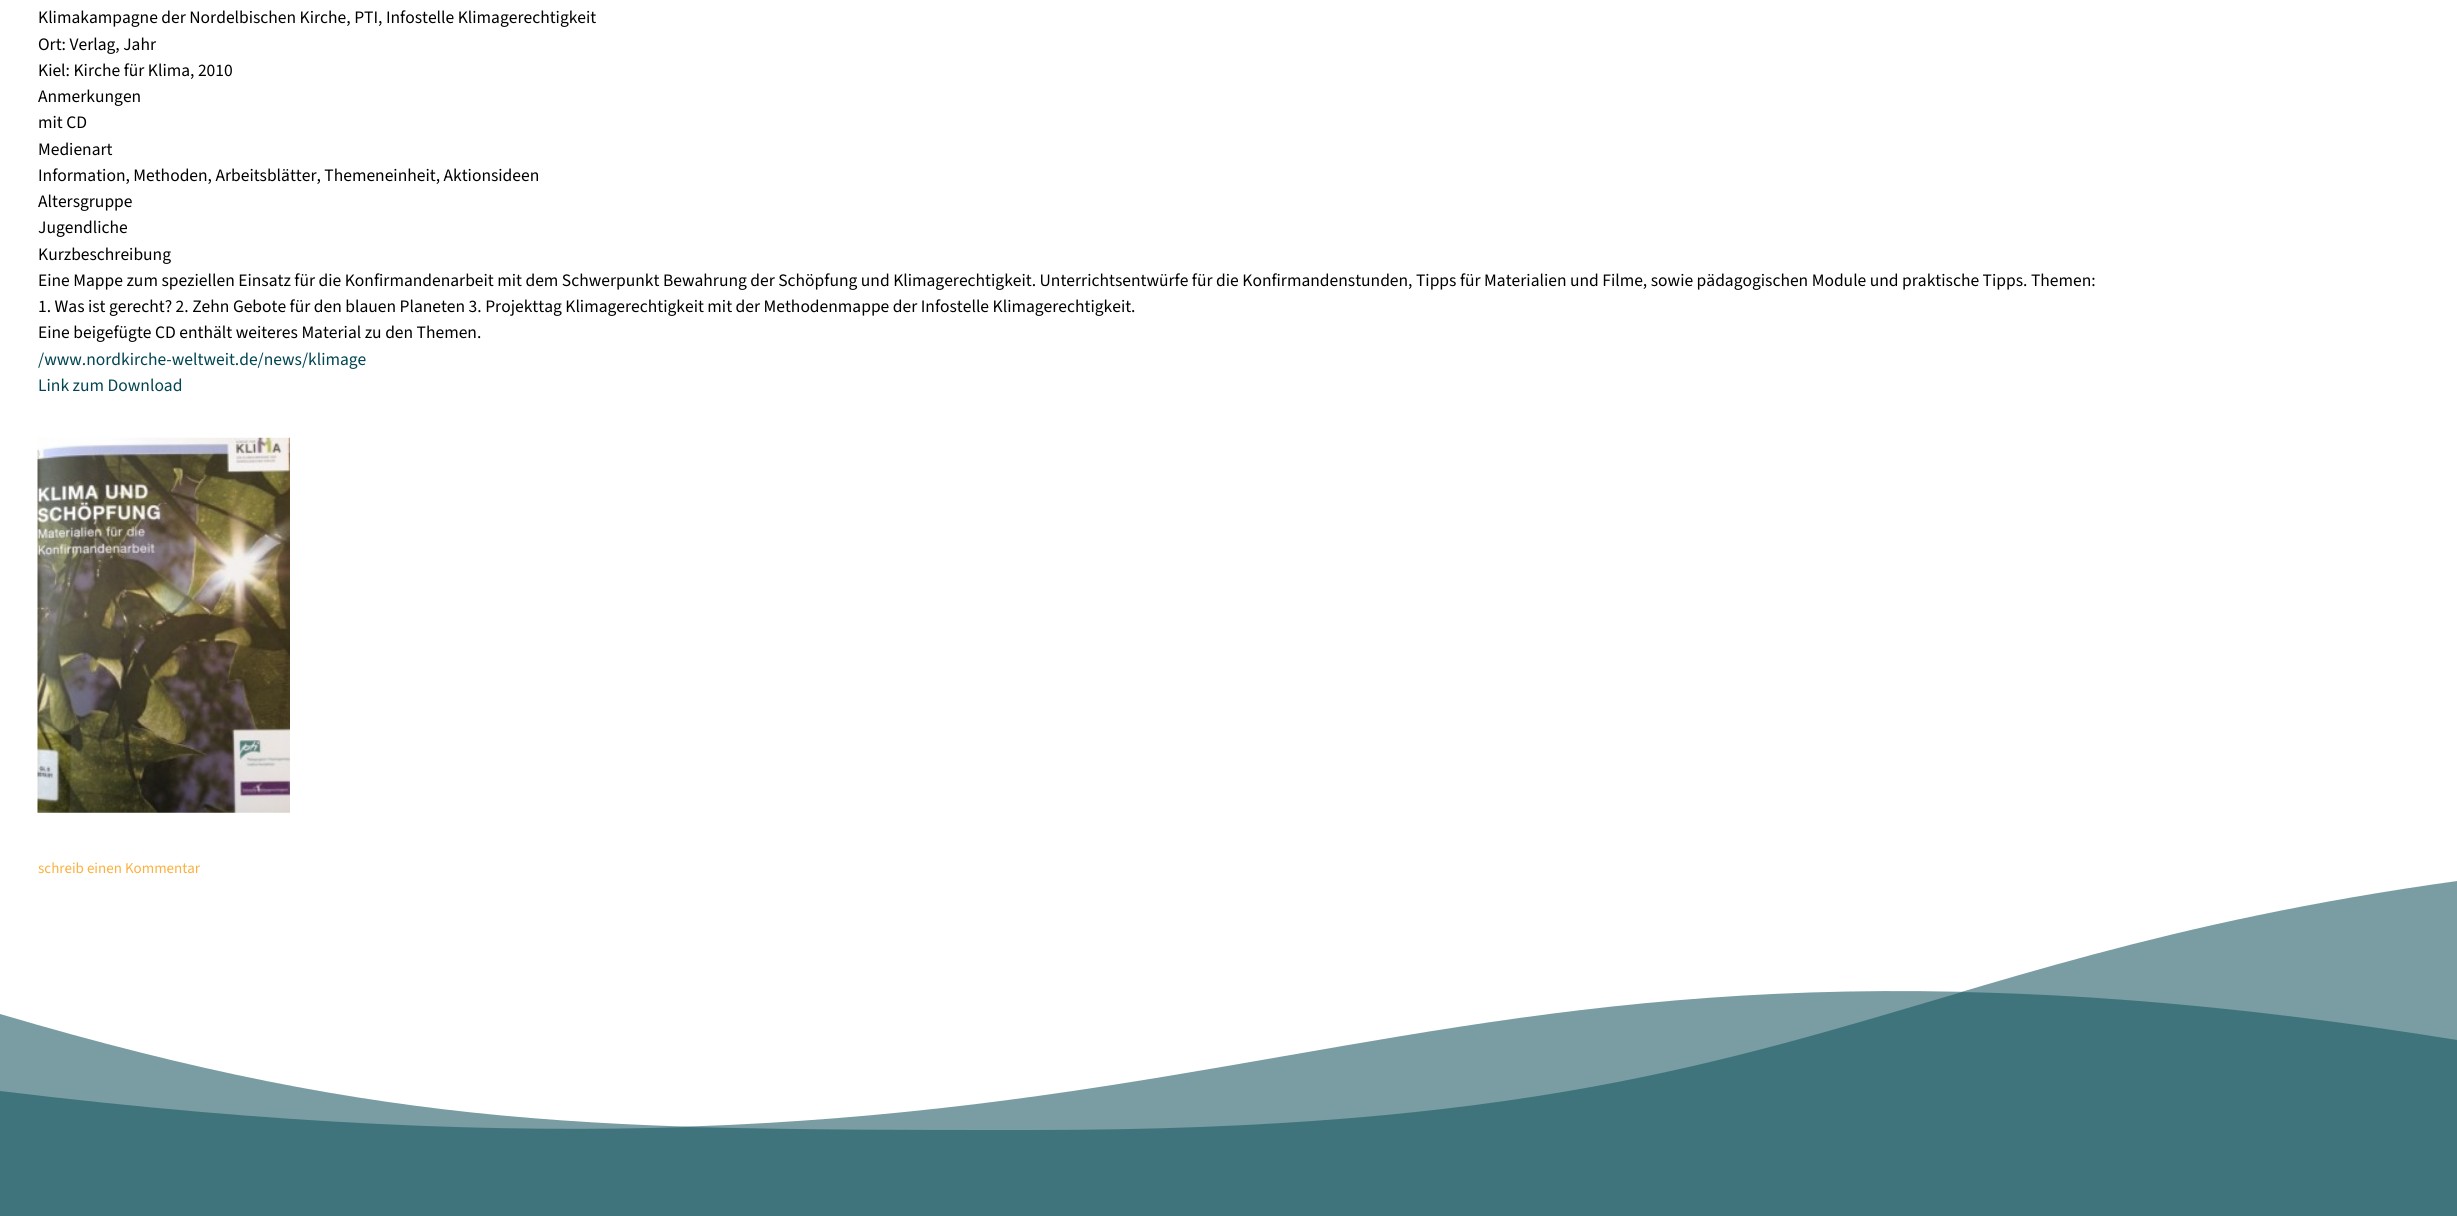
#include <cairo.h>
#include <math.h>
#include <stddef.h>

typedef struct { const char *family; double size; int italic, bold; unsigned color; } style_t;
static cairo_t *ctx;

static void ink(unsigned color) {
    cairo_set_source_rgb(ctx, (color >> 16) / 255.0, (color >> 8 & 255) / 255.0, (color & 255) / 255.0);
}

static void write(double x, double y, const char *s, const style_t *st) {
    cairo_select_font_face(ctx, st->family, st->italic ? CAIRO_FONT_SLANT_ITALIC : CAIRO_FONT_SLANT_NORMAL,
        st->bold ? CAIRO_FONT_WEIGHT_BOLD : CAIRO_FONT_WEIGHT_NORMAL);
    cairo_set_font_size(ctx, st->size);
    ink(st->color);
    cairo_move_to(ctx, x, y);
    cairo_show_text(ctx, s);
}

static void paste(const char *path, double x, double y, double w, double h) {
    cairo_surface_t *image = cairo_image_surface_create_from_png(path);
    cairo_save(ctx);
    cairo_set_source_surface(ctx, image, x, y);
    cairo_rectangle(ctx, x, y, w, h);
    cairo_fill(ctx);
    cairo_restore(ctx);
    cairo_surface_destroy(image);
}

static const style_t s1 = {"Source Sans 3 ExtraLight", 17.5, 0, 0, 0x000000};
static const style_t s2 = {"Source Sans 3 ExtraLight", 17.5, 0, 0, 0x004551};
static const style_t s3 = {"Source Sans 3 ExtraLight", 15, 0, 0, 0xfbb03f};

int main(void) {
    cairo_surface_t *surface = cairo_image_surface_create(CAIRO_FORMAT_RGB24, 2457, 1216);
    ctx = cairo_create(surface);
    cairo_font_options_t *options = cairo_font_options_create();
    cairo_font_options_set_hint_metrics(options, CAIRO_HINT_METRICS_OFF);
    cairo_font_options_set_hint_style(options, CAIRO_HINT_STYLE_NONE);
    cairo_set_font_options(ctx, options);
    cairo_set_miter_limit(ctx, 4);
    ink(0xffffff);
    cairo_paint(ctx);
    write(38, 23, "Klimakampagne der Nordelbischen Kirche, PTI, Infostelle Klimagerechtigkeit", &s1);
    write(38, 50, "Ort: Verlag, Jahr", &s1);
    write(38, 76, "Kiel: Kirche für Klima, 2010", &s1);
    write(38, 102, "Anmerkungen", &s1);
    write(38, 128, "mit CD", &s1);
    write(38, 155, "Medienart", &s1);
    write(38, 181, "Information, Methoden, Arbeitsblätter, Themeneinheit, Aktionsideen", &s1);
    write(38, 207, "Altersgruppe", &s1);
    write(38, 233, "Jugendliche", &s1);
    write(38, 260, "Kurzbeschreibung", &s1);
    write(38, 286, "Eine Mappe zum speziellen Einsatz für die Konfirmandenarbeit mit dem Schwerpunkt Bewahrung der Schöpfung und Klimagerechtigkeit. Unterrichtsentwürfe für die Konfirmandenstunden, Tipps für Materialien und Filme, sowie pädagogischen Module und praktische Tipps. Themen:", &s1);
    write(38, 312, "1. Was ist gerecht? 2. Zehn Gebote für den blauen Planeten 3. Projekttag Klimagerechtigkeit mit der Methodenmappe der Infostelle Klimagerechtigkeit.", &s1);
    write(38, 338, "Eine beigefügte CD enthält weiteres Material zu den Themen.", &s1);
    write(38, 365, "/www.nordkirche-weltweit.de/news/klimage", &s2);
    write(38, 391, "Link zum Download", &s2);
    paste("pic1.png", 37, 437, 253, 376);
    write(38, 873, "schreib einen Kommentar", &s3);
    ink(0x799da3);
    cairo_new_path(ctx);
    cairo_move_to(ctx, 2457, 1138);
    cairo_line_to(ctx, 0, 1138);
    cairo_line_to(ctx, 0, 1014);
    cairo_curve_to(ctx, 393, 1130, 602, 1130, 1032, 1130);
    cairo_curve_to(ctx, 1794, 1130, 1868, 963, 2457, 881);
    cairo_close_path(ctx);
    cairo_fill(ctx);
    cairo_new_path(ctx);
    cairo_move_to(ctx, 2457, 1040);
    cairo_line_to(ctx, 2457, 1138);
    cairo_line_to(ctx, 0, 1138);
    cairo_line_to(ctx, 0, 1091);
    cairo_curve_to(ctx, 1278, 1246, 1327, 860, 2457, 1040);
    cairo_close_path(ctx);
    cairo_fill(ctx);
    ink(0x40747d);
    cairo_new_path(ctx);
    cairo_move_to(ctx, 2457, 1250);
    cairo_line_to(ctx, 0, 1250);
    cairo_line_to(ctx, 0, 1091);
    cairo_curve_to(ctx, 280, 1125, 502, 1133, 688, 1127);
    cairo_curve_to(ctx, 820, 1130, 896, 1130, 1032, 1130);
    cairo_curve_to(ctx, 1517, 1130, 1724, 1062, 1962, 992);
    cairo_curve_to(ctx, 2104, 995, 2265, 1009, 2457, 1040);
    cairo_line_to(ctx, 2457, 1138);
    cairo_close_path(ctx);
    cairo_fill(ctx);
    cairo_surface_write_to_png(surface, "screenshot.png");
    cairo_font_options_destroy(options);
    cairo_destroy(ctx);
    cairo_surface_destroy(surface);
    return 0;
}
